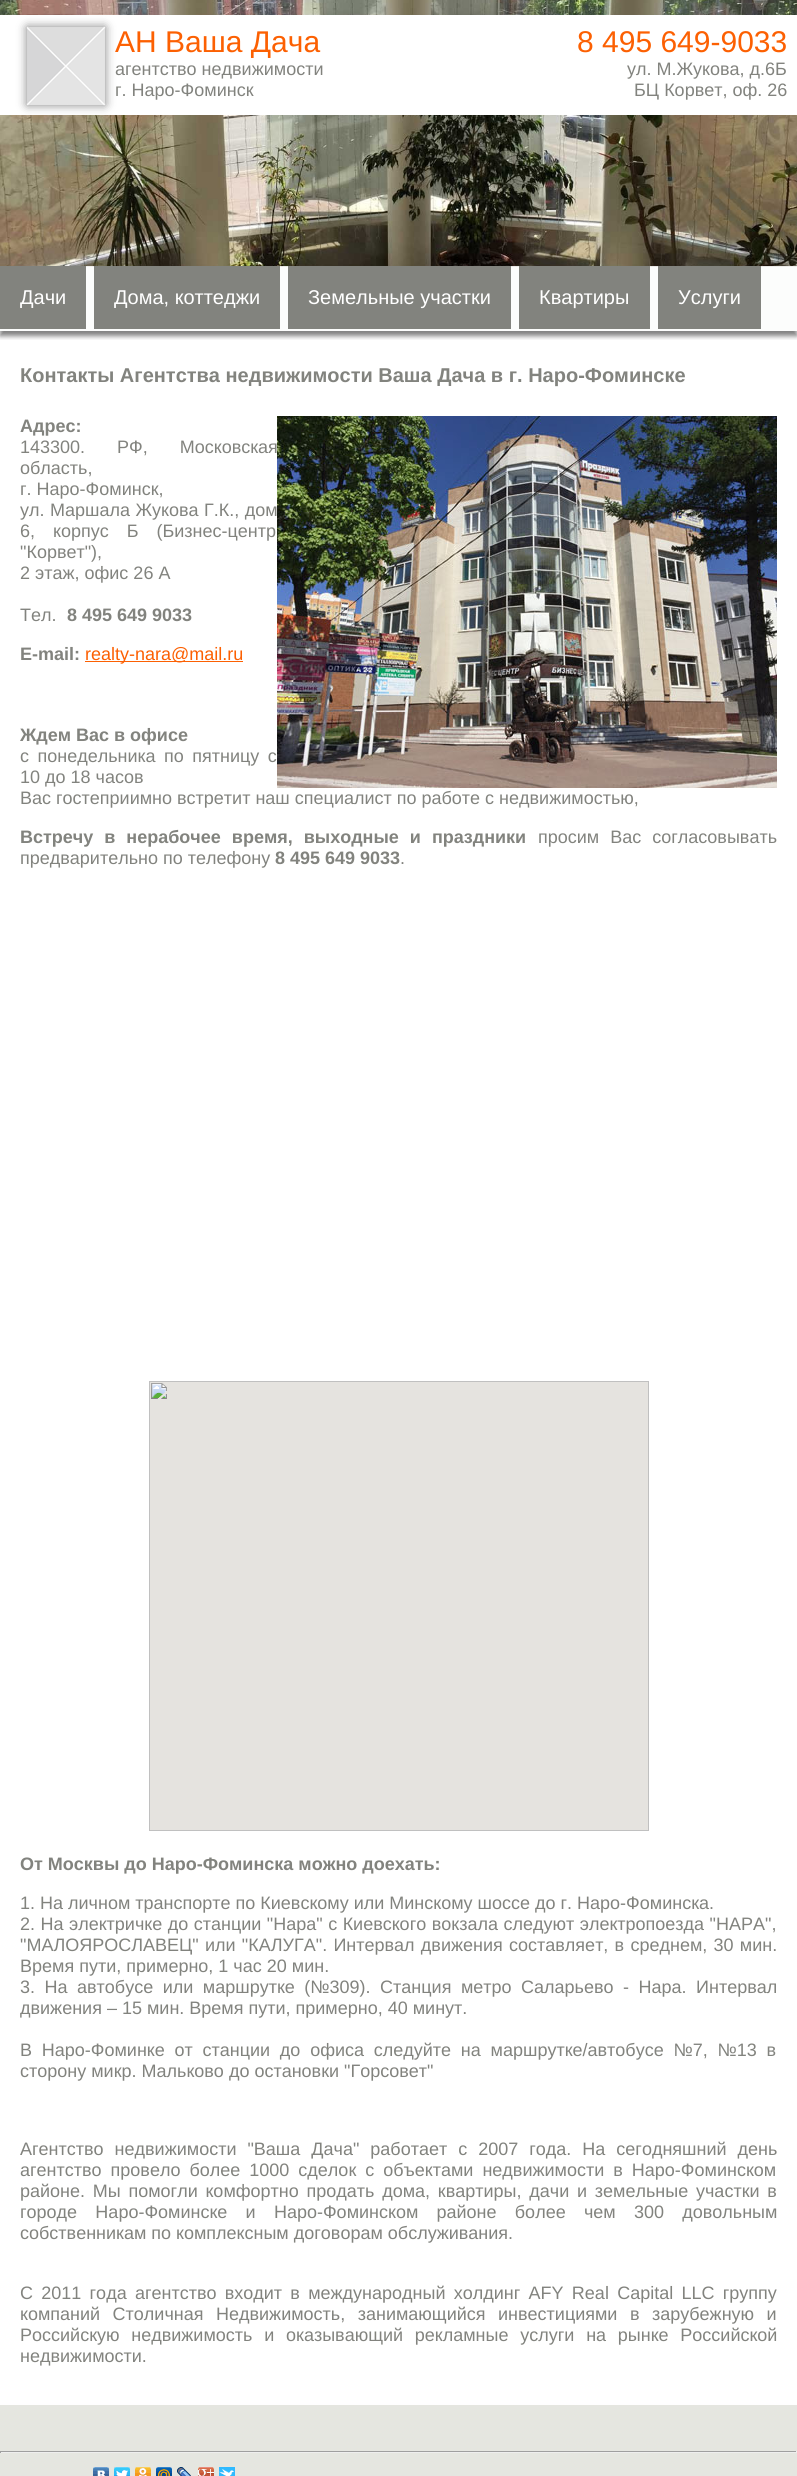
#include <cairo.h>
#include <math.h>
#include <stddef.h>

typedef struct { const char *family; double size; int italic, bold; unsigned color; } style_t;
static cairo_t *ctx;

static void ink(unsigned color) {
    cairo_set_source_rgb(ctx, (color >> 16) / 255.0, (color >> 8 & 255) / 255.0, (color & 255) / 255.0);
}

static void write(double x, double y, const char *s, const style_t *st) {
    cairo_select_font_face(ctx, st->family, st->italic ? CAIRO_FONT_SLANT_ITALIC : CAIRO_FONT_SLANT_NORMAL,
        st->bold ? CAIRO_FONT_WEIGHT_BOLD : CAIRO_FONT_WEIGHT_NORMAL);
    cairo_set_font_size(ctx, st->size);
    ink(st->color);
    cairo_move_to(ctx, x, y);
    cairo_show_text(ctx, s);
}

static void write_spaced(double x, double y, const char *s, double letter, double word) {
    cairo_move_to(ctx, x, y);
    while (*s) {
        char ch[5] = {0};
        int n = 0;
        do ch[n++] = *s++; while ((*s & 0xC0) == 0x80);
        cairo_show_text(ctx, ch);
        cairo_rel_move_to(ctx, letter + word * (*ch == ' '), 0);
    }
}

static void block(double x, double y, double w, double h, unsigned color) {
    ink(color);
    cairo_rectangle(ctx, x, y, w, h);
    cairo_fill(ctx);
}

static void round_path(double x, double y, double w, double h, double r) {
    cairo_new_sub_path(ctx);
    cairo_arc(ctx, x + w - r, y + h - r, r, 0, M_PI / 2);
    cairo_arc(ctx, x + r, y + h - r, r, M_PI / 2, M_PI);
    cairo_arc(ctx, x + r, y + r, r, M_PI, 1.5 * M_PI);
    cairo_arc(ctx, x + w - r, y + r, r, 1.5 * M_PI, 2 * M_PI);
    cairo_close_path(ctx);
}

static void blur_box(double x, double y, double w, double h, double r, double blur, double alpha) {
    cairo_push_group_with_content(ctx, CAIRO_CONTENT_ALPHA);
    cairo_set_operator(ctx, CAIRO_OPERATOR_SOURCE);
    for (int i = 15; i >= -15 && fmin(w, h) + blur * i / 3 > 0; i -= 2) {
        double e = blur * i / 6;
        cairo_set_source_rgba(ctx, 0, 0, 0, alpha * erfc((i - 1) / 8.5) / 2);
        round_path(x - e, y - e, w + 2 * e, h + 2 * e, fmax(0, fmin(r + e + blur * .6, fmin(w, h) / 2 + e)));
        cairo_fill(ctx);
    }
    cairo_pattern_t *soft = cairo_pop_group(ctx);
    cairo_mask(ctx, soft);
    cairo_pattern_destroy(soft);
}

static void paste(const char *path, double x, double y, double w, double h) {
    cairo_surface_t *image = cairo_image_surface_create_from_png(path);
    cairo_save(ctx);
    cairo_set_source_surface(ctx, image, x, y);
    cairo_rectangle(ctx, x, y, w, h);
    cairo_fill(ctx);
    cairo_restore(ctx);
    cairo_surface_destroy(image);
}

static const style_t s1 = {"Liberation Sans", 30, 0, 0, 0xfc6002};
static const style_t s2 = {"Liberation Sans", 18, 0, 0, 0x82837e};
static const style_t s3 = {"Liberation Sans", 20, 0, 0, 0xffffff};
static const style_t s4 = {"Liberation Sans", 20, 0, 1, 0x82837e};
static const style_t s5 = {"Liberation Sans", 18, 0, 1, 0x82837e};
static const style_t s6 = {"Liberation Sans", 18, 0, 0, 0xfc6002};

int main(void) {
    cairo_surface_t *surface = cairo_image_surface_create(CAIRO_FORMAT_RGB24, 797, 2476);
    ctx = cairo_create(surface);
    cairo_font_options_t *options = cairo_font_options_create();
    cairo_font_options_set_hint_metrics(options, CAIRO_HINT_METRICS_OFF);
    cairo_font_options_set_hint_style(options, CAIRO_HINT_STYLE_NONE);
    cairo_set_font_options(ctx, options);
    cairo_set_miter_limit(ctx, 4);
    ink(0xe5e6e0);
    cairo_paint(ctx);
    paste("pic1.png", 0, 0, 797, 267);
    block(0, 15, 797, 100, 0xffffff);
    ink(0x000000);
    blur_box(27, 27, 78, 78, 0, 5, 0.5);
    paste("pic2.png", 27, 27, 78, 78);
    write(115, 52, "АН Ваша Дача", &s1);
    write(115, 75, "агентство недвижимости", &s2);
    write(115, 96, "г. Наро-Фоминск", &s2);
    write(577, 52, "8 495 649-9033", &s1);
    write(627, 75, "ул. М.Жукова, д.6Б", &s2);
    write(634, 96, "БЦ Корвет, оф. 26", &s2);
    block(0, 331, 797, 2074, 0xffffff);
    cairo_save(ctx);
    cairo_rectangle(ctx, 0, 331, 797, 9);
    cairo_clip(ctx);
    ink(0x000000);
    blur_box(0, 271, 797, 65, 0, 2.5, 0.5);
    cairo_restore(ctx);
    cairo_set_source_rgba(ctx, 1, 1, 1, 0.9);
    cairo_rectangle(ctx, 0, 266, 797, 65);
    cairo_fill(ctx);
    block(0, 266, 86, 63, 0x82837e);
    write(20, 304, "Дачи", &s3);
    block(94, 266, 186, 63, 0x82837e);
    write(114, 304, "Дома, коттеджи", &s3);
    block(288, 266, 223, 63, 0x82837e);
    write(308, 304, "Земельные участки", &s3);
    block(519, 266, 131, 63, 0x82837e);
    write(539, 304, "Квартиры", &s3);
    block(658, 266, 103, 63, 0x82837e);
    write(678, 304, "Услуги", &s3);
    write(20, 382, "Контакты Агентства недвижимости Ваша Дача в г. Наро-Фоминске", &s4);
    write(20, 432, "Адрес:", &s5);
    paste("pic3.png", 277, 416, 500, 372);
    cairo_select_font_face(ctx, "Liberation Sans", CAIRO_FONT_SLANT_NORMAL, CAIRO_FONT_WEIGHT_NORMAL);
    write_spaced(20, 453, "143300. РФ, Московская", 0, 27);
    write(20, 474, "область,", &s2);
    write(20, 495, "г. Наро-Фоминск,", &s2);
    write_spaced(20, 516, "ул. Маршала Жукова Г.К., дом", 0, 0.5);
    write_spaced(20, 537, "6, корпус Б (Бизнес-центр", 0, 13);
    write(20, 558, "\"Корвет\"),", &s2);
    write(20, 579, "2 этаж, офис 26 А", &s2);
    write(20, 621, "Тел.", &s2);
    write(67, 621, "8 495 649 9033", &s5);
    write(20, 660, "E-mail:", &s5);
    block(85, 661, 158, 1, 0xfc6002);
    write(85, 660, "realty-nara@mail.ru", &s6);
    write(20, 741, "Ждем Вас в офисе", &s5);
    cairo_select_font_face(ctx, "Liberation Sans", CAIRO_FONT_SLANT_NORMAL, CAIRO_FONT_WEIGHT_NORMAL);
    write_spaced(20, 762, "с понедельника по пятницу с", 0, 3.5);
    write(20, 783, "10 до 18 часов", &s2);
    write(20, 804, "Вас гостеприимно встретит наш специалист по работе с недвижимостью,", &s2);
    cairo_select_font_face(ctx, "Liberation Sans", CAIRO_FONT_SLANT_NORMAL, CAIRO_FONT_WEIGHT_BOLD);
    write_spaced(20, 843, "Встречу в нерабочее время, выходные и праздники", 0, 6);
    cairo_select_font_face(ctx, "Liberation Sans", CAIRO_FONT_SLANT_NORMAL, CAIRO_FONT_WEIGHT_NORMAL);
    write_spaced(538, 843, "просим Вас согласовывать", 0, 6);
    write(20, 864, "предварительно по телефону", &s2);
    write(275, 864, "8 495 649 9033", &s5);
    write(400, 864, ".", &s2);
    paste("pic4.png", 149, 1381, 500, 450);
    write(20, 1870, "От Москвы до Наро-Фоминска можно доехать:", &s5);
    write(20, 1909, "1. На личном транспорте по Киевскому или Минскому шоссе до г. Наро-Фоминска.", &s2);
    write_spaced(20, 1930, "2. На электричке до станции \"Нара\" с Киевского вокзала следуют электропоезда \"НАРА\",", 0, 0.5);
    write_spaced(20, 1951, "\"МАЛОЯРОСЛАВЕЦ\" или \"КАЛУГА\". Интервал движения составляет, в среднем, 30 мин.", 0, 1.25);
    write(20, 1972, "Время пути, примерно, 1 час 20 мин.", &s2);
    write_spaced(20, 1993, "3. На автобусе или маршрутке (№309). Станция метро Саларьево - Нара. Интервал", 0, 4.5);
    write(20, 2014, "движения – 15 мин. Время пути, примерно, 40 минут.", &s2);
    write_spaced(20, 2056, "В Наро-Фоминке от станции до офиса следуйте на маршрутке/автобусе №7, №13 в", 0, 4.75);
    write(20, 2077, "сторону микр. Мальково до остановки \"Горсовет\"", &s2);
    write_spaced(20, 2155, "Агентство недвижимости \"Ваша Дача\" работает с 2007 года. На сегодняшний день", 0, 6);
    write_spaced(20, 2176, "агентство провело более 1000 сделок с объектами недвижимости в Наро-Фоминском", 0, 4);
    write_spaced(20, 2197, "районе. Мы помогли комфортно продать дома, квартиры, дачи и земельные участки в", 0, 2.75);
    write_spaced(20, 2218, "городе Наро-Фоминске и Наро-Фоминском районе более чем 300 довольным", 0, 13.25);
    write(20, 2239, "собственникам по комплексным договорам обслуживания.", &s2);
    write_spaced(20, 2299, "С 2011 года агентство входит в международный холдинг AFY Real Capital LLC группу", 0, 3.25);
    write_spaced(20, 2320, "компаний Столичная Недвижимость, занимающийся инвестициями в зарубежную и", 0, 7.5);
    write_spaced(20, 2341, "Российскую недвижимость и оказывающий рекламные услуги на рынке Российской", 0, 6.75);
    write(20, 2362, "недвижимости.", &s2);
    block(0, 2451, 797, 1, 0x9f9f9f);
    block(796, 2451, 1, 2, 0xeeeeee);
    block(0, 2452, 797, 1, 0xeeeeee);
    block(0, 2451, 1, 2, 0x9f9f9f);
    paste("pic5.png", 93, 2467, 16, 9);
    paste("pic6.png", 114, 2467, 16, 9);
    paste("pic7.png", 135, 2467, 16, 9);
    paste("pic8.png", 156, 2467, 16, 9);
    paste("pic9.png", 177, 2467, 14, 9);
    paste("pic10.png", 198, 2467, 16, 9);
    paste("pic11.png", 219, 2467, 16, 9);
    cairo_surface_write_to_png(surface, "screenshot.png");
    cairo_font_options_destroy(options);
    cairo_destroy(ctx);
    cairo_surface_destroy(surface);
    return 0;
}
